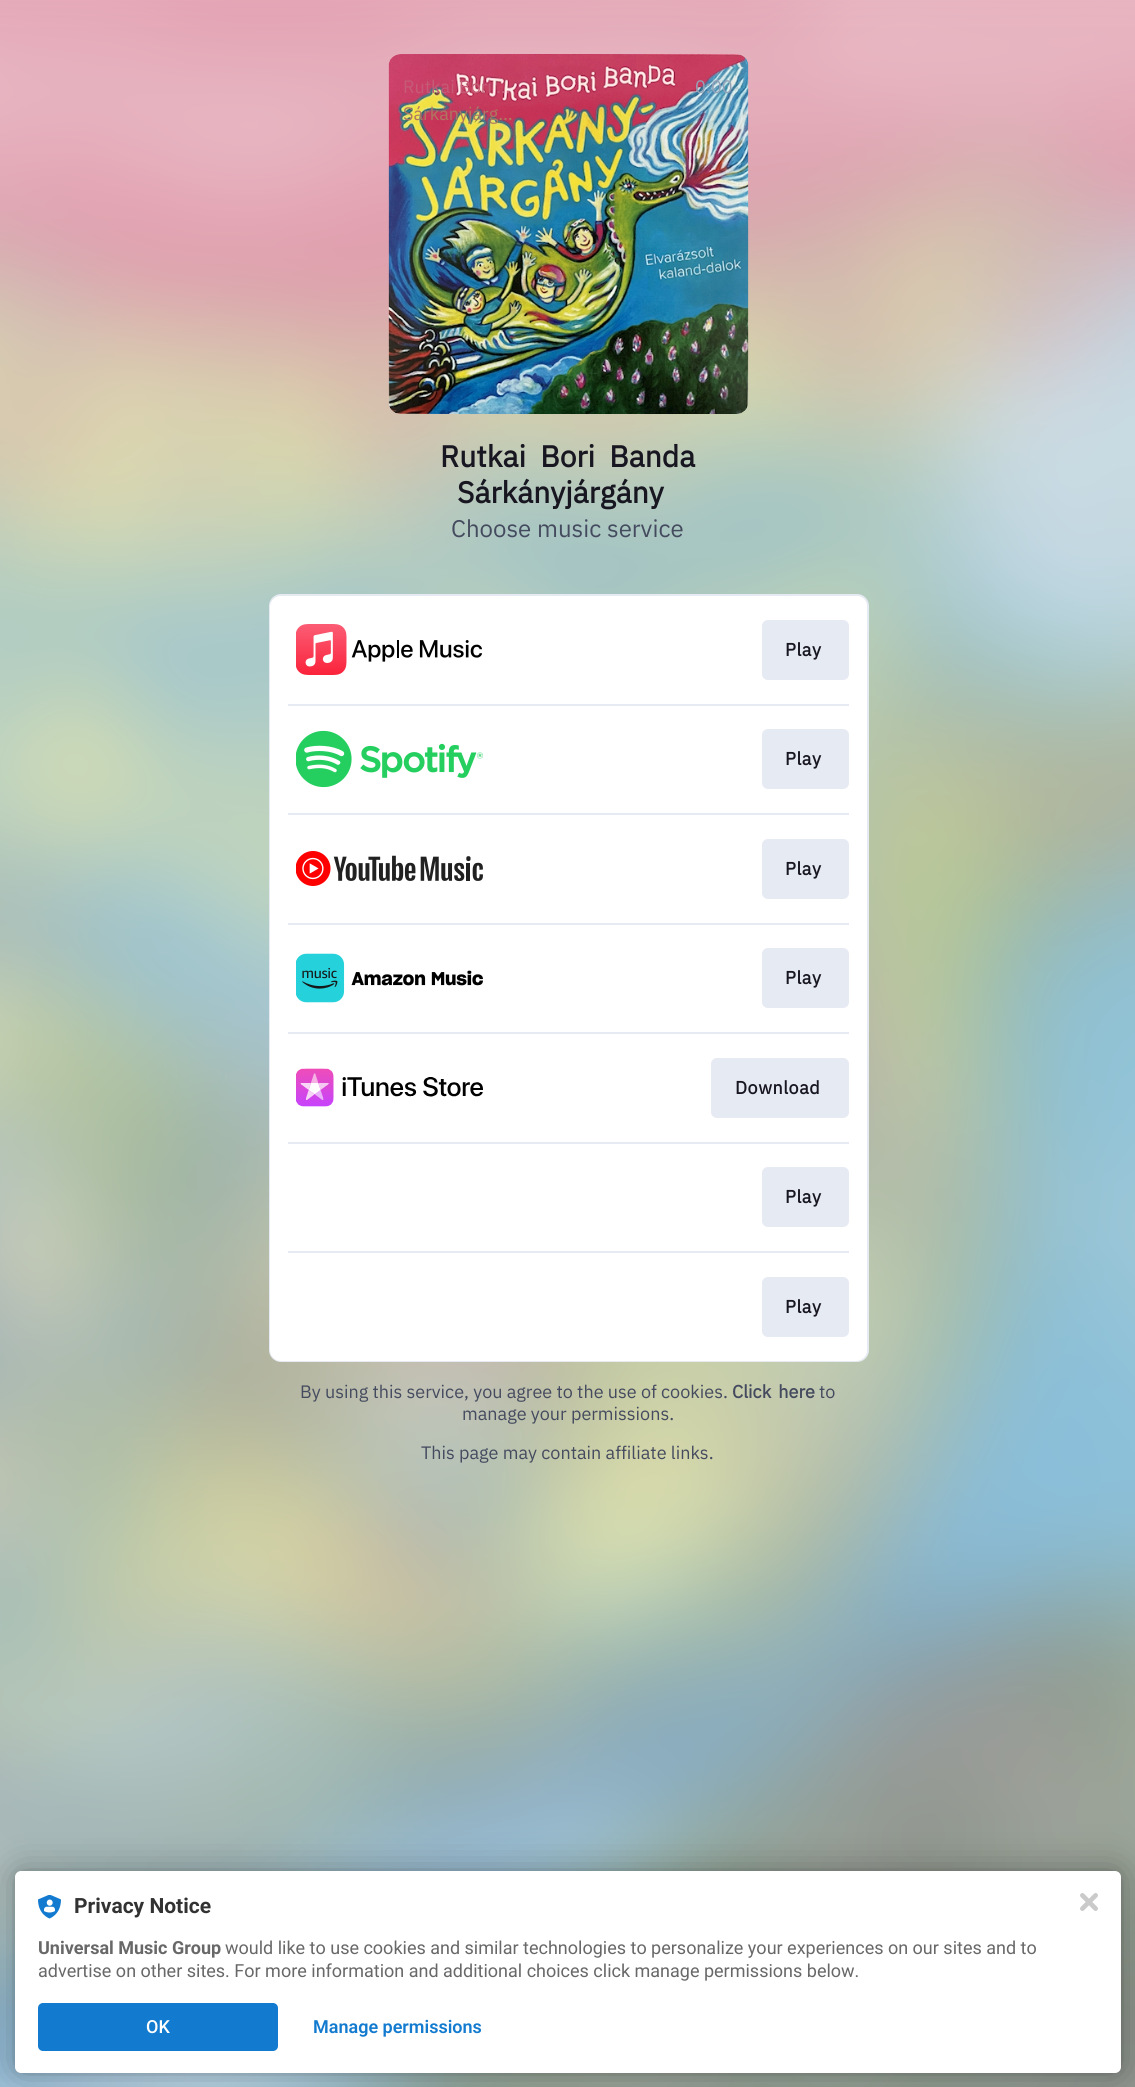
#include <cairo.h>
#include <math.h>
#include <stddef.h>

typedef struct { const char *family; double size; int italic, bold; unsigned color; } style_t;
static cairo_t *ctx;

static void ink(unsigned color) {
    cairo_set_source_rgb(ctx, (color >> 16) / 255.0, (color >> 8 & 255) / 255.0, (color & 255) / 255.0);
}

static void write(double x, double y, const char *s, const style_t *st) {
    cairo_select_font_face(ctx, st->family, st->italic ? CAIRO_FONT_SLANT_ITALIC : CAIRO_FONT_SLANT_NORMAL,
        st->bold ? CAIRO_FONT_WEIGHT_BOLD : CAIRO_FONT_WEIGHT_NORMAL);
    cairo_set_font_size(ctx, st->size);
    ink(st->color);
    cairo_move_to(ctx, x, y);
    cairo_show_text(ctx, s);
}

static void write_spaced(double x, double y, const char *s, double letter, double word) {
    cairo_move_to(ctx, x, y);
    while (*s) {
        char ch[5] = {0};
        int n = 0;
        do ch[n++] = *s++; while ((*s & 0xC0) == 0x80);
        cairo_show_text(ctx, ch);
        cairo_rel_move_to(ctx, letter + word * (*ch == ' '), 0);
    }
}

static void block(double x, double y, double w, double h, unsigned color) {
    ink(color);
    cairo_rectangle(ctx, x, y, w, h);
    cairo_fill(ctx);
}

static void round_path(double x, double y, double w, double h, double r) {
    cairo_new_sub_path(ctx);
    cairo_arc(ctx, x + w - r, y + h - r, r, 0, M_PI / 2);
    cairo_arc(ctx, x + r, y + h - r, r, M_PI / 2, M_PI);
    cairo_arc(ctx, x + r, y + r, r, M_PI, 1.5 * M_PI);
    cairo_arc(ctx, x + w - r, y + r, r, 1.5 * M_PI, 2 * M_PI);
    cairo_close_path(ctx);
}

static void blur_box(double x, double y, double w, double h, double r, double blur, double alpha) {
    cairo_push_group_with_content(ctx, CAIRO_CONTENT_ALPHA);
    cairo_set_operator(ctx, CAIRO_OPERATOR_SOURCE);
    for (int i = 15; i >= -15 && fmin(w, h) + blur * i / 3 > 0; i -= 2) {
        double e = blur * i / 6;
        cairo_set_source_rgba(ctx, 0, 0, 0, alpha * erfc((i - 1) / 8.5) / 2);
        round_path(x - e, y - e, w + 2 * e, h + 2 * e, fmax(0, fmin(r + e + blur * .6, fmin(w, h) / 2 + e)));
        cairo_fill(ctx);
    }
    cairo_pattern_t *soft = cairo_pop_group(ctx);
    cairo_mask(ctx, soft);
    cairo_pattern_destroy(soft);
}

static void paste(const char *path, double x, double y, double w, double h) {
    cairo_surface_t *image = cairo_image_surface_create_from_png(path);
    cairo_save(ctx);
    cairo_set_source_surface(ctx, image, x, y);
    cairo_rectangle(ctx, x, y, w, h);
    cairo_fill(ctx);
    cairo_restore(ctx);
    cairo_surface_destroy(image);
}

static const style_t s1 = {"IBM Plex Sans", 18, 0, 0, 0xc55b76};
static const style_t s2 = {"IBM Plex Sans", 18, 0, 0, 0xad7762};
static const style_t s3 = {"IBM Plex Sans", 18, 0, 0, 0x94a3b8};
static const style_t s4 = {"IBM Plex Sans", 30, 0, 1, 0x181721};
static const style_t s5 = {"IBM Plex Sans", 24, 0, 0, 0x454b5f};
static const style_t s6 = {"IBM Plex Sans", 18, 0, 0, 0x454b5f};
static const style_t s7 = {"Roboto", 21, 0, 1, 0x323232};
static const style_t s8 = {"Roboto", 18, 0, 1, 0x686868};
static const style_t s9 = {"Roboto", 18, 0, 0, 0x686868};
static const style_t s10 = {"Roboto Medium", 18, 0, 0, 0xffffff};
static const style_t s11 = {"Roboto SemiBold", 18, 0, 0, 0x137bcf};

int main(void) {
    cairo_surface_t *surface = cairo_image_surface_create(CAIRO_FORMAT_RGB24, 1135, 2087);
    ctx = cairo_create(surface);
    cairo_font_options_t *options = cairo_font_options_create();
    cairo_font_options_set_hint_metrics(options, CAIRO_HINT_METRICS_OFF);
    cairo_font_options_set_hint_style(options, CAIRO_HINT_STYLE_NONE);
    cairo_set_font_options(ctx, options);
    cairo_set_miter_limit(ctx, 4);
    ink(0xffffff);
    cairo_paint(ctx);
    paste("pic1.png", 0, 0, 1135, 2087);
    paste("pic2.png", 388, 54, 361, 360);
    write(403, 93, "Rutkai Bori …", &s1);
    cairo_save(ctx);
    cairo_rectangle(ctx, 404, 101, 114, 27);
    cairo_clip(ctx);
    write(403, 120, "Sárkányjárg…", &s2);
    cairo_restore(ctx);
    write(695, 93, "0:00", &s3);
    cairo_select_font_face(ctx, "IBM Plex Sans", CAIRO_FONT_SLANT_NORMAL, CAIRO_FONT_WEIGHT_BOLD);
    cairo_set_font_size(ctx, 30);
    ink(0x181721);
    write_spaced(440, 467, "Rutkai Bori Banda", 0, 7);
    write(457, 503, "Sárkányjárgány", &s4);
    write(451, 537, "Choose music service", &s5);
    ink(0xffffff);
    round_path(270, 595, 598, 766, 11);
    cairo_fill_preserve(ctx);
    ink(0xe6eaf2);
    cairo_stroke(ctx);
    ink(0xffffff);
    round_path(270, 596, 597, 765, 11);
    cairo_fill(ctx);
    paste("pic3.png", 296, 624, 186, 51);
    ink(0xe6eaf2);
    round_path(762, 620, 87, 60, 6);
    cairo_fill(ctx);
    cairo_select_font_face(ctx, "IBM Plex Sans", CAIRO_FONT_SLANT_NORMAL, CAIRO_FONT_WEIGHT_BOLD);
    cairo_set_font_size(ctx, 18);
    ink(0x181721);
    write_spaced(785, 656, "Play", 0.5, 0);
    block(288, 704, 561, 2, 0xe6eaf2);
    paste("pic4.png", 296, 730, 187, 58);
    round_path(762, 729, 87, 60, 6);
    cairo_fill(ctx);
    ink(0x181721);
    write_spaced(785, 765, "Play", 0.5, 0);
    block(288, 813, 561, 2, 0xe6eaf2);
    paste("pic5.png", 296, 851, 187, 35);
    round_path(762, 839, 87, 60, 6);
    cairo_fill(ctx);
    ink(0x181721);
    write_spaced(785, 875, "Play", 0.5, 0);
    block(288, 923, 561, 2, 0xe6eaf2);
    paste("pic6.png", 296, 953, 187, 50);
    round_path(762, 948, 87, 60, 6);
    cairo_fill(ctx);
    ink(0x181721);
    write_spaced(785, 984, "Play", 0.5, 0);
    block(288, 1032, 561, 2, 0xe6eaf2);
    paste("pic7.png", 296, 1068, 187, 39);
    round_path(711, 1058, 138, 60, 6);
    cairo_fill(ctx);
    ink(0x181721);
    write_spaced(735, 1094, "Download", 0.5, 0);
    block(288, 1142, 561, 2, 0xe6eaf2);
    round_path(762, 1167, 87, 60, 6);
    cairo_fill(ctx);
    ink(0x181721);
    write_spaced(785, 1203, "Play", 0.5, 0);
    block(288, 1251, 561, 2, 0xe6eaf2);
    round_path(762, 1277, 87, 60, 6);
    cairo_fill(ctx);
    ink(0x181721);
    write_spaced(785, 1313, "Play", 0.5, 0);
    write(300, 1398, "By using this service, you agree to the use of cookies.", &s6);
    cairo_select_font_face(ctx, "IBM Plex Sans", CAIRO_FONT_SLANT_NORMAL, CAIRO_FONT_WEIGHT_BOLD);
    write_spaced(732, 1398, "Click here", 0, 3);
    write(819, 1398, "to", &s6);
    write(462, 1420, "manage your permissions.", &s6);
    write(421, 1459, "This page may contain affiliate links.", &s6);
    ink(0x000000);
    blur_box(15, 1871, 1106, 202, 6, 3, 0.12);
    blur_box(15, 1871, 1106, 202, 6, 18, 0.3);
    ink(0xffffff);
    round_path(15, 1871, 1106, 202, 6);
    cairo_fill(ctx);
    paste("pic8.png", 38, 1895, 23, 24);
    write(74, 1913, "Privacy Notice", &s7);
    write(38, 1954, "Universal Music Group", &s8);
    write(225, 1954, "would like to use cookies and similar technologies to personalize your experiences on our sites and to", &s9);
    write(38, 1977, "advertise on other sites. For more information and additional choices click manage permissions below.", &s9);
    ink(0x137bcf);
    round_path(38, 2003, 240, 48, 5);
    cairo_fill(ctx);
    write(146, 2033, "OK", &s10);
    write(313, 2033, "Manage permissions", &s11);
    paste("pic9.png", 1080, 1893, 18, 18);
    cairo_surface_write_to_png(surface, "screenshot.png");
    cairo_font_options_destroy(options);
    cairo_destroy(ctx);
    cairo_surface_destroy(surface);
    return 0;
}
